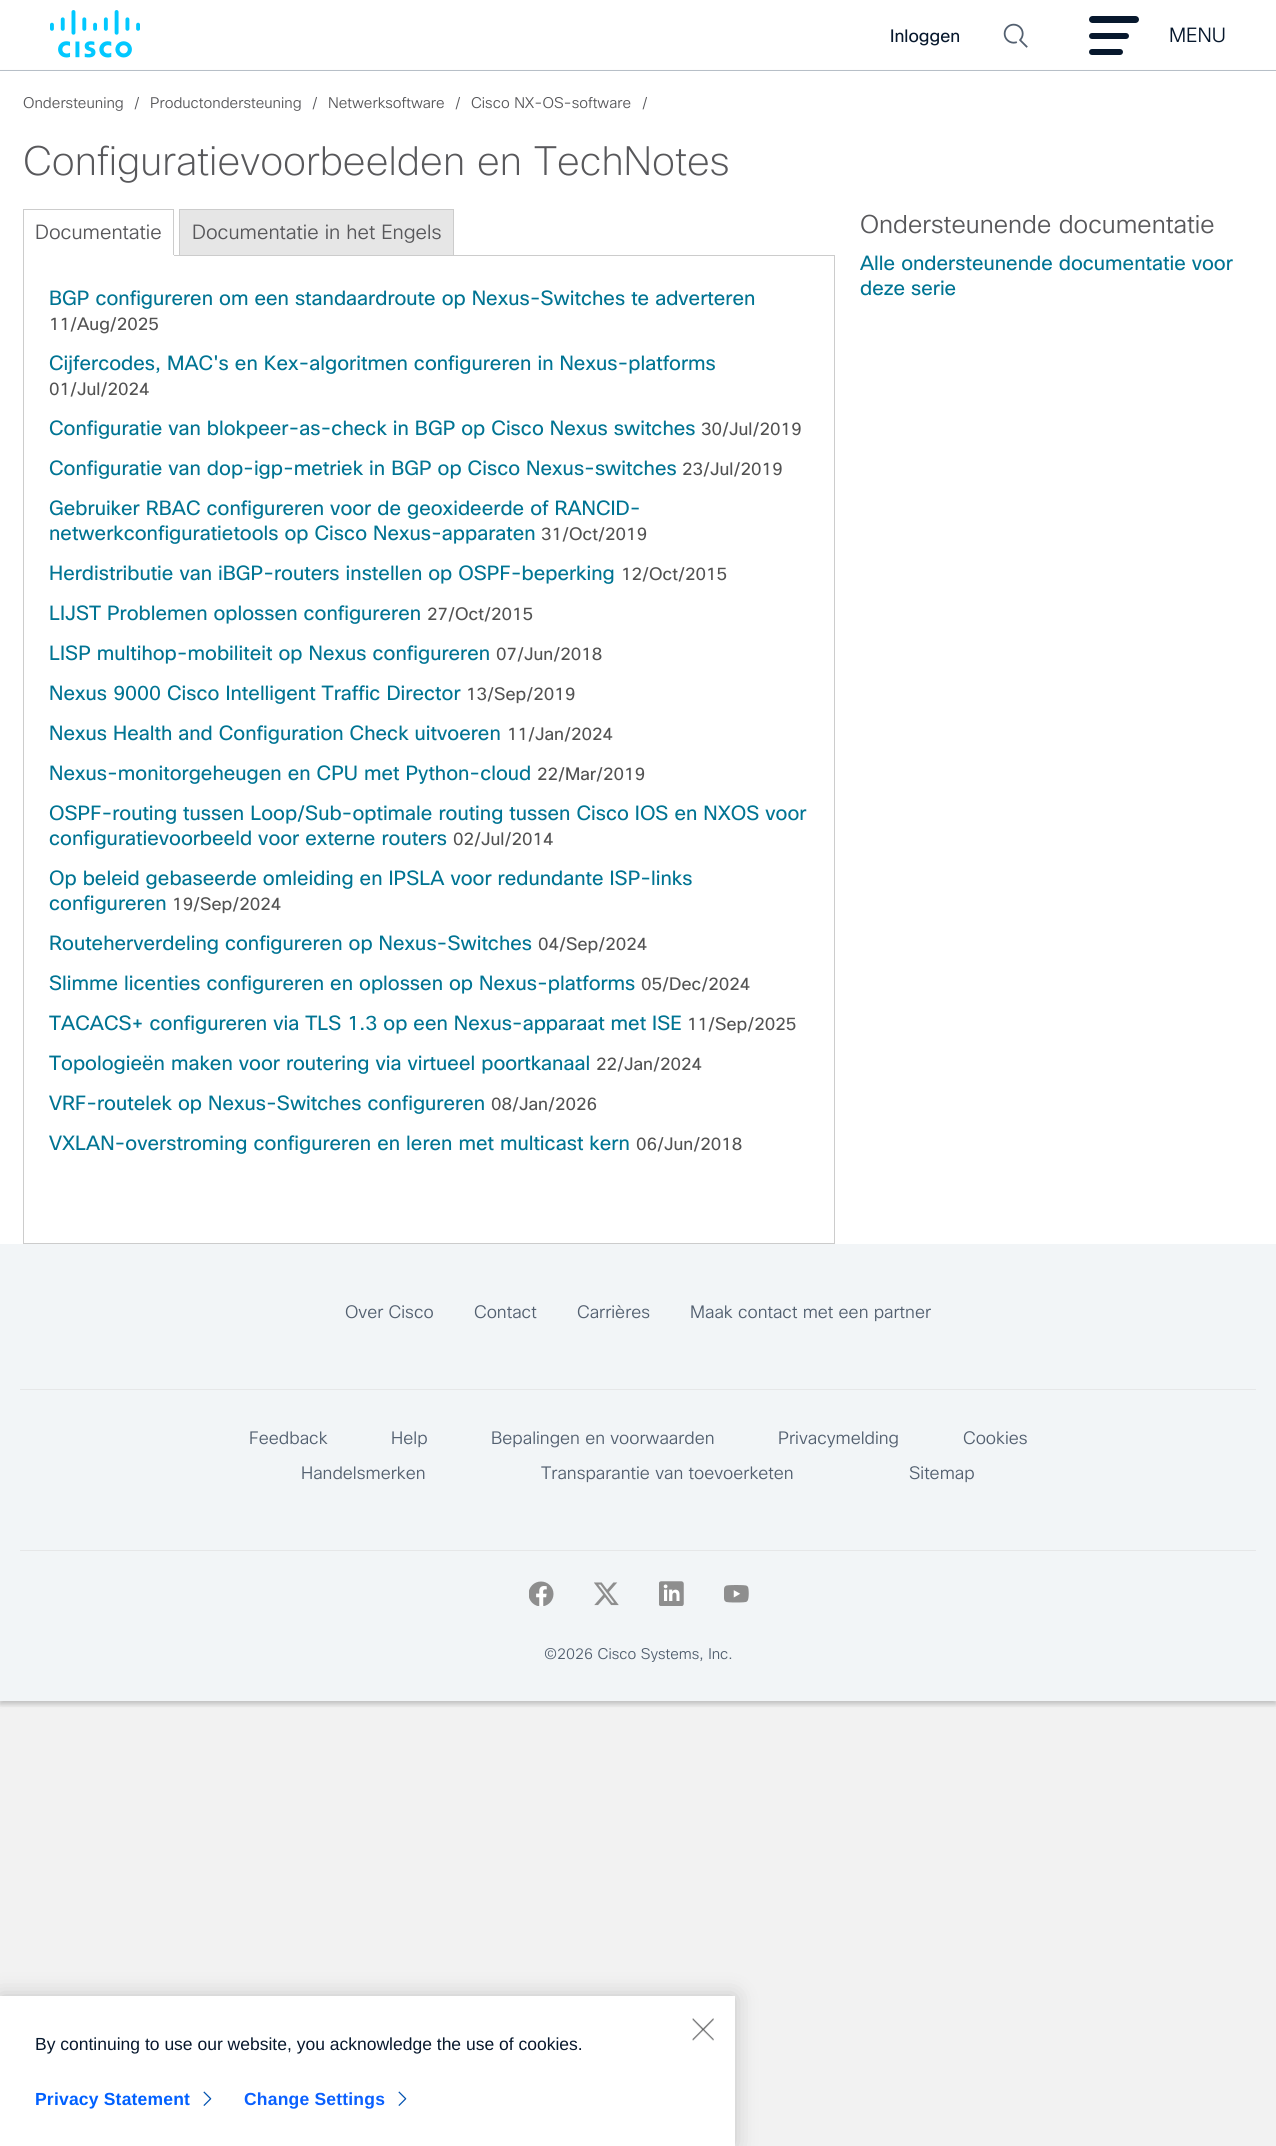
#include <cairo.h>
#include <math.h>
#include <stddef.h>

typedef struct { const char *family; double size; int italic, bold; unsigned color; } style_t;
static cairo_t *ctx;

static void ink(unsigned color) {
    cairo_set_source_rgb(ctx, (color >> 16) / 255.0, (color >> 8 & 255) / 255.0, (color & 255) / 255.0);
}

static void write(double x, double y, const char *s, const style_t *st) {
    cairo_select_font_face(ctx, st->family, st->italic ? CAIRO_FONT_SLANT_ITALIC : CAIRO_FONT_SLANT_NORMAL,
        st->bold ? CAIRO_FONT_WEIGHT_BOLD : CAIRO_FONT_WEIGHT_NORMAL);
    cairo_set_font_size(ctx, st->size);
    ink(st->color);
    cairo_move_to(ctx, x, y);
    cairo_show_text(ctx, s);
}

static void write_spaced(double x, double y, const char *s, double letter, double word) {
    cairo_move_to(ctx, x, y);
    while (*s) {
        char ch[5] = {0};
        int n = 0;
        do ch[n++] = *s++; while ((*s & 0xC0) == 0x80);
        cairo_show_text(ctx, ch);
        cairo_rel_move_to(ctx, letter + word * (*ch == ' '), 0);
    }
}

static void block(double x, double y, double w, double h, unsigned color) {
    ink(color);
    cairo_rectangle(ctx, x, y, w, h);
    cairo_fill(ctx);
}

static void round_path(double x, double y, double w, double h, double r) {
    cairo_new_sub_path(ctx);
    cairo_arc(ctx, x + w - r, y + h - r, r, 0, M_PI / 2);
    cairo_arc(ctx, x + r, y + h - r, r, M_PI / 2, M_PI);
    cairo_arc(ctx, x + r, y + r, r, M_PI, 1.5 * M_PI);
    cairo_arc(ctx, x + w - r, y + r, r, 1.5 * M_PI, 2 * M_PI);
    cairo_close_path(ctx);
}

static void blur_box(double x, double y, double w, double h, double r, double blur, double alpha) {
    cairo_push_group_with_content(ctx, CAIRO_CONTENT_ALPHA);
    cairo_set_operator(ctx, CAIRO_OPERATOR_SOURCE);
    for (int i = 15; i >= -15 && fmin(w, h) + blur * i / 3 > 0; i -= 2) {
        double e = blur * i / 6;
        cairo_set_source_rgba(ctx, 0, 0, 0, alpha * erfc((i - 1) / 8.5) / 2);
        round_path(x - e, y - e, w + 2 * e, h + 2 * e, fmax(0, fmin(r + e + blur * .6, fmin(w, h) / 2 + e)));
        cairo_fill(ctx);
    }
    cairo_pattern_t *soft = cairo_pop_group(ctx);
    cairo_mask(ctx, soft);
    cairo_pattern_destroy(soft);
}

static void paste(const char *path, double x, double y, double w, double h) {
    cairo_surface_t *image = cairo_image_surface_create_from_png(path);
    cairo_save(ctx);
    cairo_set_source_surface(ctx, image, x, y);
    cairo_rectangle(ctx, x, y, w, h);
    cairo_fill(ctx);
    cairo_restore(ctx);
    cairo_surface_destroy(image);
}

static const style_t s1 = {"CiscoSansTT", 17.5, 0, 0, 0x07182d};
static const style_t s2 = {"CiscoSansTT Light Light", 20, 0, 0, 0x07182d};
static const style_t s3 = {"CiscoSansTT Light Light", 15, 0, 0, 0x58585b};
static const style_t s4 = {"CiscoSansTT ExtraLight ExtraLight", 40, 0, 0, 0x58585b};
static const style_t s5 = {"CiscoSansTT Light Light", 20, 0, 0, 0x58585b};
static const style_t s6 = {"CiscoSansTT", 20, 0, 0, 0x007493};
static const style_t s7 = {"CiscoSansTT", 17.5, 0, 0, 0x525252};
static const style_t s8 = {"CiscoSansTT Light Light", 25, 0, 0, 0x58585b};
static const style_t s9 = {"CiscoSansTT Light Light", 17.5, 0, 0, 0x536070};
static const style_t s10 = {"CiscoSansTT Light Light", 15, 0, 0, 0x536070};
static const style_t s11 = {"Liberation Sans", 17.5, 0, 0, 0x07182d};

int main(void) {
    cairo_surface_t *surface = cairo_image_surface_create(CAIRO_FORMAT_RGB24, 1276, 2146);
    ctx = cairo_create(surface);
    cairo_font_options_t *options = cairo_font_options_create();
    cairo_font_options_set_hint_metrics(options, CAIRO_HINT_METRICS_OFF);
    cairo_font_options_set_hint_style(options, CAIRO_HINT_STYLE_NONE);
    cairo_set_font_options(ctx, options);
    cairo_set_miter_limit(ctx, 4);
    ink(0xf2f2f2);
    cairo_paint(ctx);
    block(0, 0, 1276, 70, 0xffffff);
    block(0, 70, 1276, 1, 0xb9c1c9);
    paste("pic1.png", 50, 10, 90, 48);
    write(890, 42, "Inloggen", &s1);
    paste("pic2.png", 1003, 23, 25, 25);
    round_path(1089, 16, 50, 7, 3.5);
    cairo_fill(ctx);
    round_path(1089, 33, 40, 6, 3);
    cairo_fill(ctx);
    round_path(1089, 49, 34, 6, 3);
    cairo_fill(ctx);
    write(1169, 42, "MENU", &s2);
    ink(0x000000);
    blur_box(0, 74, 1276, 1630, 0, 3, 0.12);
    block(0, 71, 1276, 1173, 0xffffff);
    write(23, 108, "Ondersteuning", &s3);
    write(134, 108, "/", &s3);
    write(150, 108, "Productondersteuning", &s3);
    write(312, 108, "/", &s3);
    write(328, 108, "Netwerksoftware", &s3);
    write(455, 108, "/", &s3);
    write(471, 108, "Cisco NX-OS-software", &s3);
    write(642, 108, "/", &s3);
    write(23, 175, "Configuratievoorbeelden en TechNotes", &s4);
    block(23, 209, 151, 1, 0xcccccc);
    block(0, 1244, 1276, 457, 0xf2f5f7);
    cairo_save(ctx);
    cairo_rectangle(ctx, 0, 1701, 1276, 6);
    cairo_clip(ctx);
    ink(0x000000);
    blur_box(0, 1246, 1276, 458, 0, 3, 0.12);
    cairo_restore(ctx);
    cairo_rectangle(ctx, 23.5, 255.5, 811, 988);
    ink(0xcccccc);
    cairo_set_line_width(ctx, 1);
    cairo_stroke(ctx);
    block(173, 209, 1, 47, 0xcccccc);
    block(23, 255, 151, 1, 0xffffff);
    block(23, 209, 1, 47, 0xcccccc);
    write(35, 239, "Documentatie", &s5);
    ink(0xe6e6e6);
    cairo_rectangle(ctx, 179.5, 209.5, 274, 46);
    cairo_fill_preserve(ctx);
    ink(0xcccccc);
    cairo_stroke(ctx);
    write(192, 239, "Documentatie in het Engels", &s5);
    write(49, 305, "BGP configureren om een standaardroute op Nexus-Switches te adverteren", &s6);
    write(49, 330, "11/Aug/2025", &s7);
    write(49, 370, "Cijfercodes, MAC's en Kex-algoritmen configureren in Nexus-platforms", &s6);
    write(49, 395, "01/Jul/2024", &s7);
    write(49, 435, "Configuratie van blokpeer-as-check in BGP op Cisco Nexus switches", &s6);
    write(701, 435, "30/Jul/2019", &s7);
    write(49, 475, "Configuratie van dop-igp-metriek in BGP op Cisco Nexus-switches", &s6);
    write(682, 475, "23/Jul/2019", &s7);
    write(49, 515, "Gebruiker RBAC configureren voor de geoxideerde of RANCID-", &s6);
    write(49, 540, "netwerkconfiguratietools op Cisco Nexus-apparaten", &s6);
    write(541, 540, "31/Oct/2019", &s7);
    write(49, 580, "Herdistributie van iBGP-routers instellen op OSPF-beperking", &s6);
    write(621, 580, "12/Oct/2015", &s7);
    write(49, 620, "LIJST Problemen oplossen configureren", &s6);
    write(427, 620, "27/Oct/2015", &s7);
    write(49, 660, "LISP multihop-mobiliteit op Nexus configureren", &s6);
    write(496, 660, "07/Jun/2018", &s7);
    write(49, 700, "Nexus 9000 Cisco Intelligent Traffic Director", &s6);
    write(466, 700, "13/Sep/2019", &s7);
    write(49, 740, "Nexus Health and Configuration Check uitvoeren", &s6);
    write(507, 740, "11/Jan/2024", &s7);
    write(49, 780, "Nexus-monitorgeheugen en CPU met Python-cloud", &s6);
    write(537, 780, "22/Mar/2019", &s7);
    write(49, 820, "OSPF-routing tussen Loop/Sub-optimale routing tussen Cisco IOS en NXOS voor", &s6);
    write(49, 845, "configuratievoorbeeld voor externe routers", &s6);
    write(453, 845, "02/Jul/2014", &s7);
    write(49, 885, "Op beleid gebaseerde omleiding en IPSLA voor redundante ISP-links", &s6);
    write(49, 910, "configureren", &s6);
    write(172, 910, "19/Sep/2024", &s7);
    write(49, 950, "Routeherverdeling configureren op Nexus-Switches", &s6);
    write(538, 950, "04/Sep/2024", &s7);
    write(49, 990, "Slimme licenties configureren en oplossen op Nexus-platforms", &s6);
    write(641, 990, "05/Dec/2024", &s7);
    write(49, 1030, "TACACS+ configureren via TLS 1.3 op een Nexus-apparaat met ISE", &s6);
    write(687, 1030, "11/Sep/2025", &s7);
    write(49, 1070, "Topologieën maken voor routering via virtueel poortkanaal", &s6);
    write(596, 1070, "22/Jan/2024", &s7);
    write(49, 1110, "VRF-routelek op Nexus-Switches configureren", &s6);
    write(491, 1110, "08/Jan/2026", &s7);
    write(49, 1150, "VXLAN-overstroming configureren en leren met multicast kern", &s6);
    write(636, 1150, "06/Jun/2018", &s7);
    write(860, 233, "Ondersteunende documentatie", &s8);
    write(860, 270, "Alle ondersteunende documentatie voor", &s6);
    write(860, 295, "deze serie", &s6);
    write(345, 1318, "Over Cisco", &s9);
    write(474, 1318, "Contact", &s9);
    write(577, 1318, "Carrières", &s9);
    write(690, 1318, "Maak contact met een partner", &s9);
    block(20, 1389, 1236, 1, 0xe6e7e8);
    write(249, 1444, "Feedback", &s9);
    write(391, 1444, "Help", &s9);
    write(491, 1444, "Bepalingen en voorwaarden", &s9);
    write(778, 1444, "Privacymelding", &s9);
    write(963, 1444, "Cookies", &s9);
    write(301, 1479, "Handelsmerken", &s9);
    write(541, 1479, "Transparantie van toevoerketen", &s9);
    write(909, 1479, "Sitemap", &s9);
    block(20, 1550, 1236, 1, 0xe6e7e8);
    paste("pic3.png", 529, 1581, 25, 25);
    paste("pic4.png", 594, 1582, 25, 24);
    paste("pic5.png", 659, 1581, 25, 25);
    paste("pic6.png", 724, 1585, 25, 18);
    write(544, 1659, "©2026 Cisco Systems, Inc.", &s10);
    ink(0x000000);
    blur_box(0, 1996, 735, 150, 0, 11, 0.2);
    block(0, 1996, 735, 150, 0xffffff);
    paste("pic7.png", 692, 2018, 22, 23);
    write(35, 2050, "By continuing to use our website, you acknowledge the use of cookies.", &s11);
    cairo_select_font_face(ctx, "Liberation Sans", CAIRO_FONT_SLANT_NORMAL, CAIRO_FONT_WEIGHT_BOLD);
    ink(0x0060ff);
    write_spaced(35, 2105, "Privacy Statement", 0.2, 0);
    paste("pic8.png", 203, 2091, 9, 15);
    ink(0x0a60ff);
    write_spaced(244, 2105, "Change Settings", 0.2, 0);
    paste("pic8.png", 398, 2091, 9, 15);
    cairo_surface_write_to_png(surface, "screenshot.png");
    cairo_font_options_destroy(options);
    cairo_destroy(ctx);
    cairo_surface_destroy(surface);
    return 0;
}
